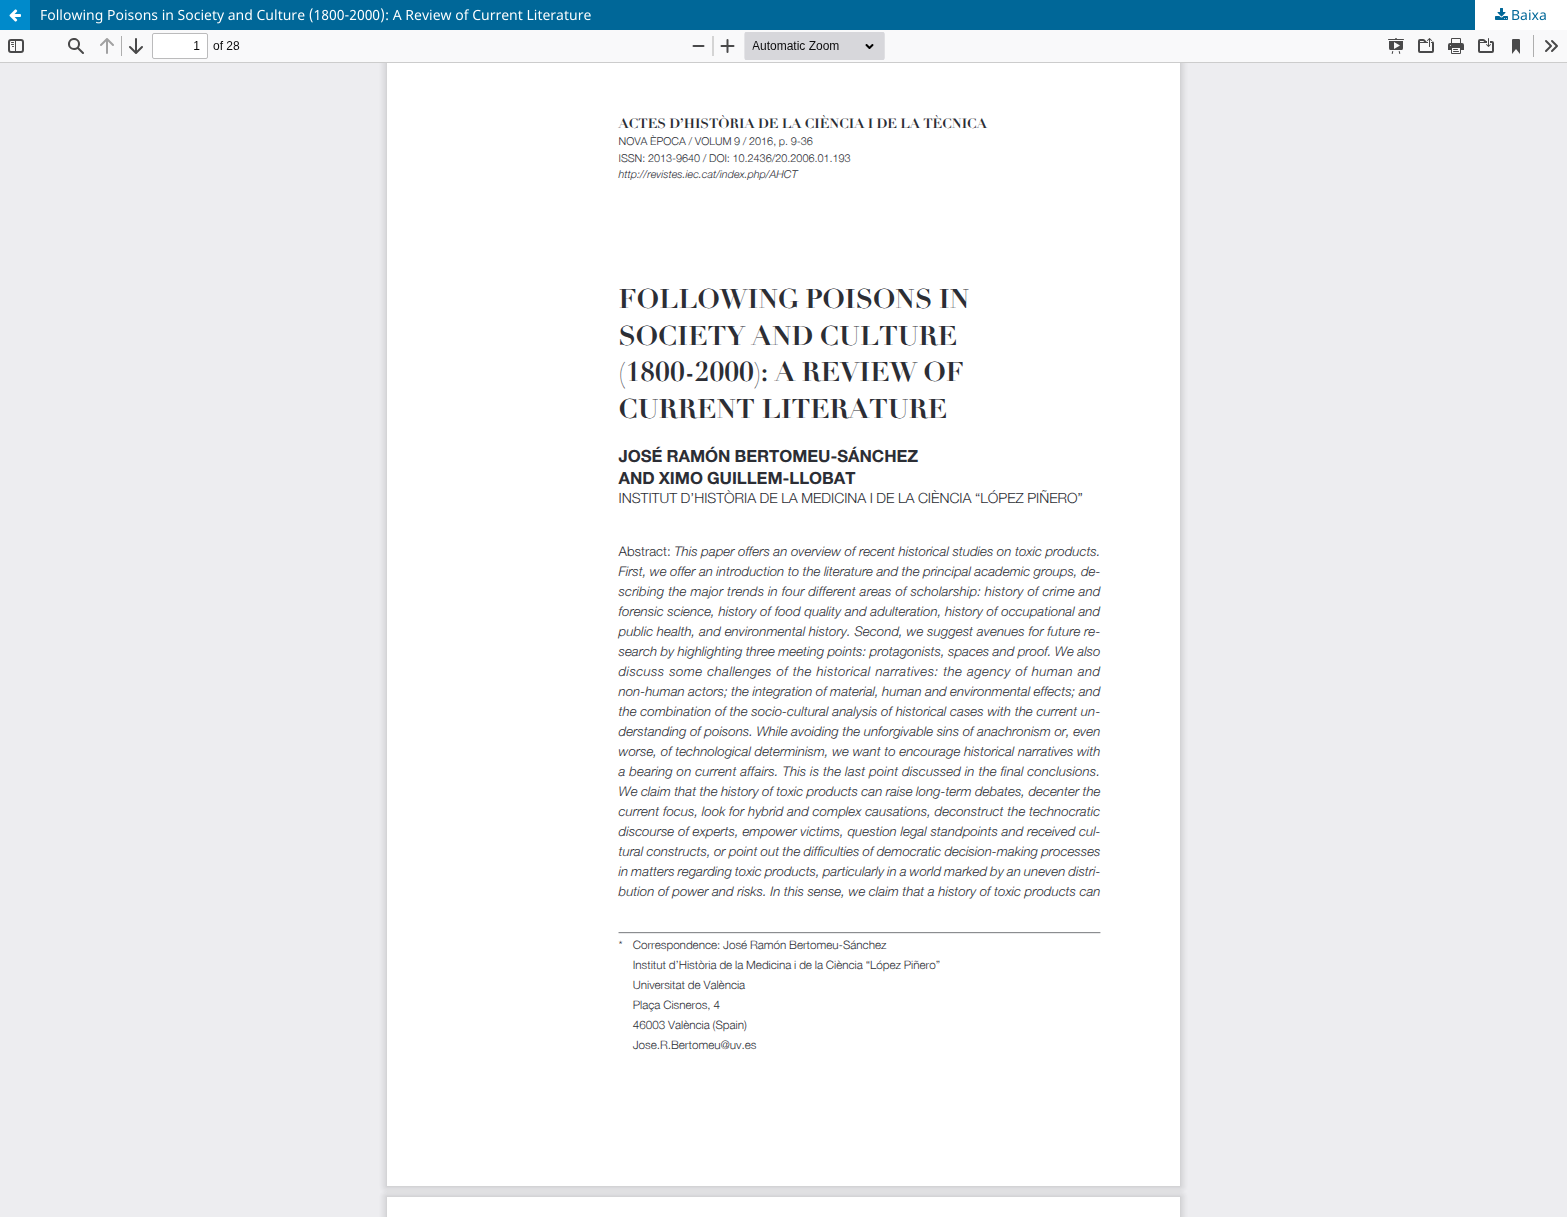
#include <cairo.h>
#include <math.h>
#include <stddef.h>

typedef struct { const char *family; double size; int italic, bold; unsigned color; } style_t;
static cairo_t *ctx;

static void ink(unsigned color) {
    cairo_set_source_rgb(ctx, (color >> 16) / 255.0, (color >> 8 & 255) / 255.0, (color & 255) / 255.0);
}

static void write(double x, double y, const char *s, const style_t *st) {
    cairo_select_font_face(ctx, st->family, st->italic ? CAIRO_FONT_SLANT_ITALIC : CAIRO_FONT_SLANT_NORMAL,
        st->bold ? CAIRO_FONT_WEIGHT_BOLD : CAIRO_FONT_WEIGHT_NORMAL);
    cairo_set_font_size(ctx, st->size);
    ink(st->color);
    cairo_move_to(ctx, x, y);
    cairo_show_text(ctx, s);
}

static void block(double x, double y, double w, double h, unsigned color) {
    ink(color);
    cairo_rectangle(ctx, x, y, w, h);
    cairo_fill(ctx);
}

static void paste(const char *path, double x, double y, double w, double h) {
    cairo_surface_t *image = cairo_image_surface_create_from_png(path);
    cairo_save(ctx);
    cairo_set_source_surface(ctx, image, x, y);
    cairo_rectangle(ctx, x, y, w, h);
    cairo_fill(ctx);
    cairo_restore(ctx);
    cairo_surface_destroy(image);
}

static const style_t s1 = {"Noto Sans", 14, 0, 0, 0xffffff};
static const style_t s2 = {"Noto Sans", 14, 0, 0, 0x006798};

int main(void) {
    cairo_surface_t *surface = cairo_image_surface_create(CAIRO_FORMAT_RGB24, 1567, 1217);
    ctx = cairo_create(surface);
    cairo_font_options_t *options = cairo_font_options_create();
    cairo_font_options_set_hint_metrics(options, CAIRO_HINT_METRICS_OFF);
    cairo_font_options_set_hint_style(options, CAIRO_HINT_STYLE_NONE);
    cairo_set_font_options(ctx, options);
    cairo_set_miter_limit(ctx, 4);
    ink(0xffffff);
    cairo_paint(ctx);
    block(30, 0, 1445, 30, 0x006798);
    block(0, 0, 30, 30, 0x008acb);
    paste("pic1.png", 9, 9, 12, 13);
    write(40, 20, "Following Poisons in Society and Culture (1800-2000): A Review of Current Literature", &s1);
    paste("pic2.png", 1495, 8, 13, 12);
    write(1511, 20, "Baixa", &s2);
    paste("pic3.png", 0, 30, 1567, 1187);
    cairo_surface_write_to_png(surface, "screenshot.png");
    cairo_font_options_destroy(options);
    cairo_destroy(ctx);
    cairo_surface_destroy(surface);
    return 0;
}
